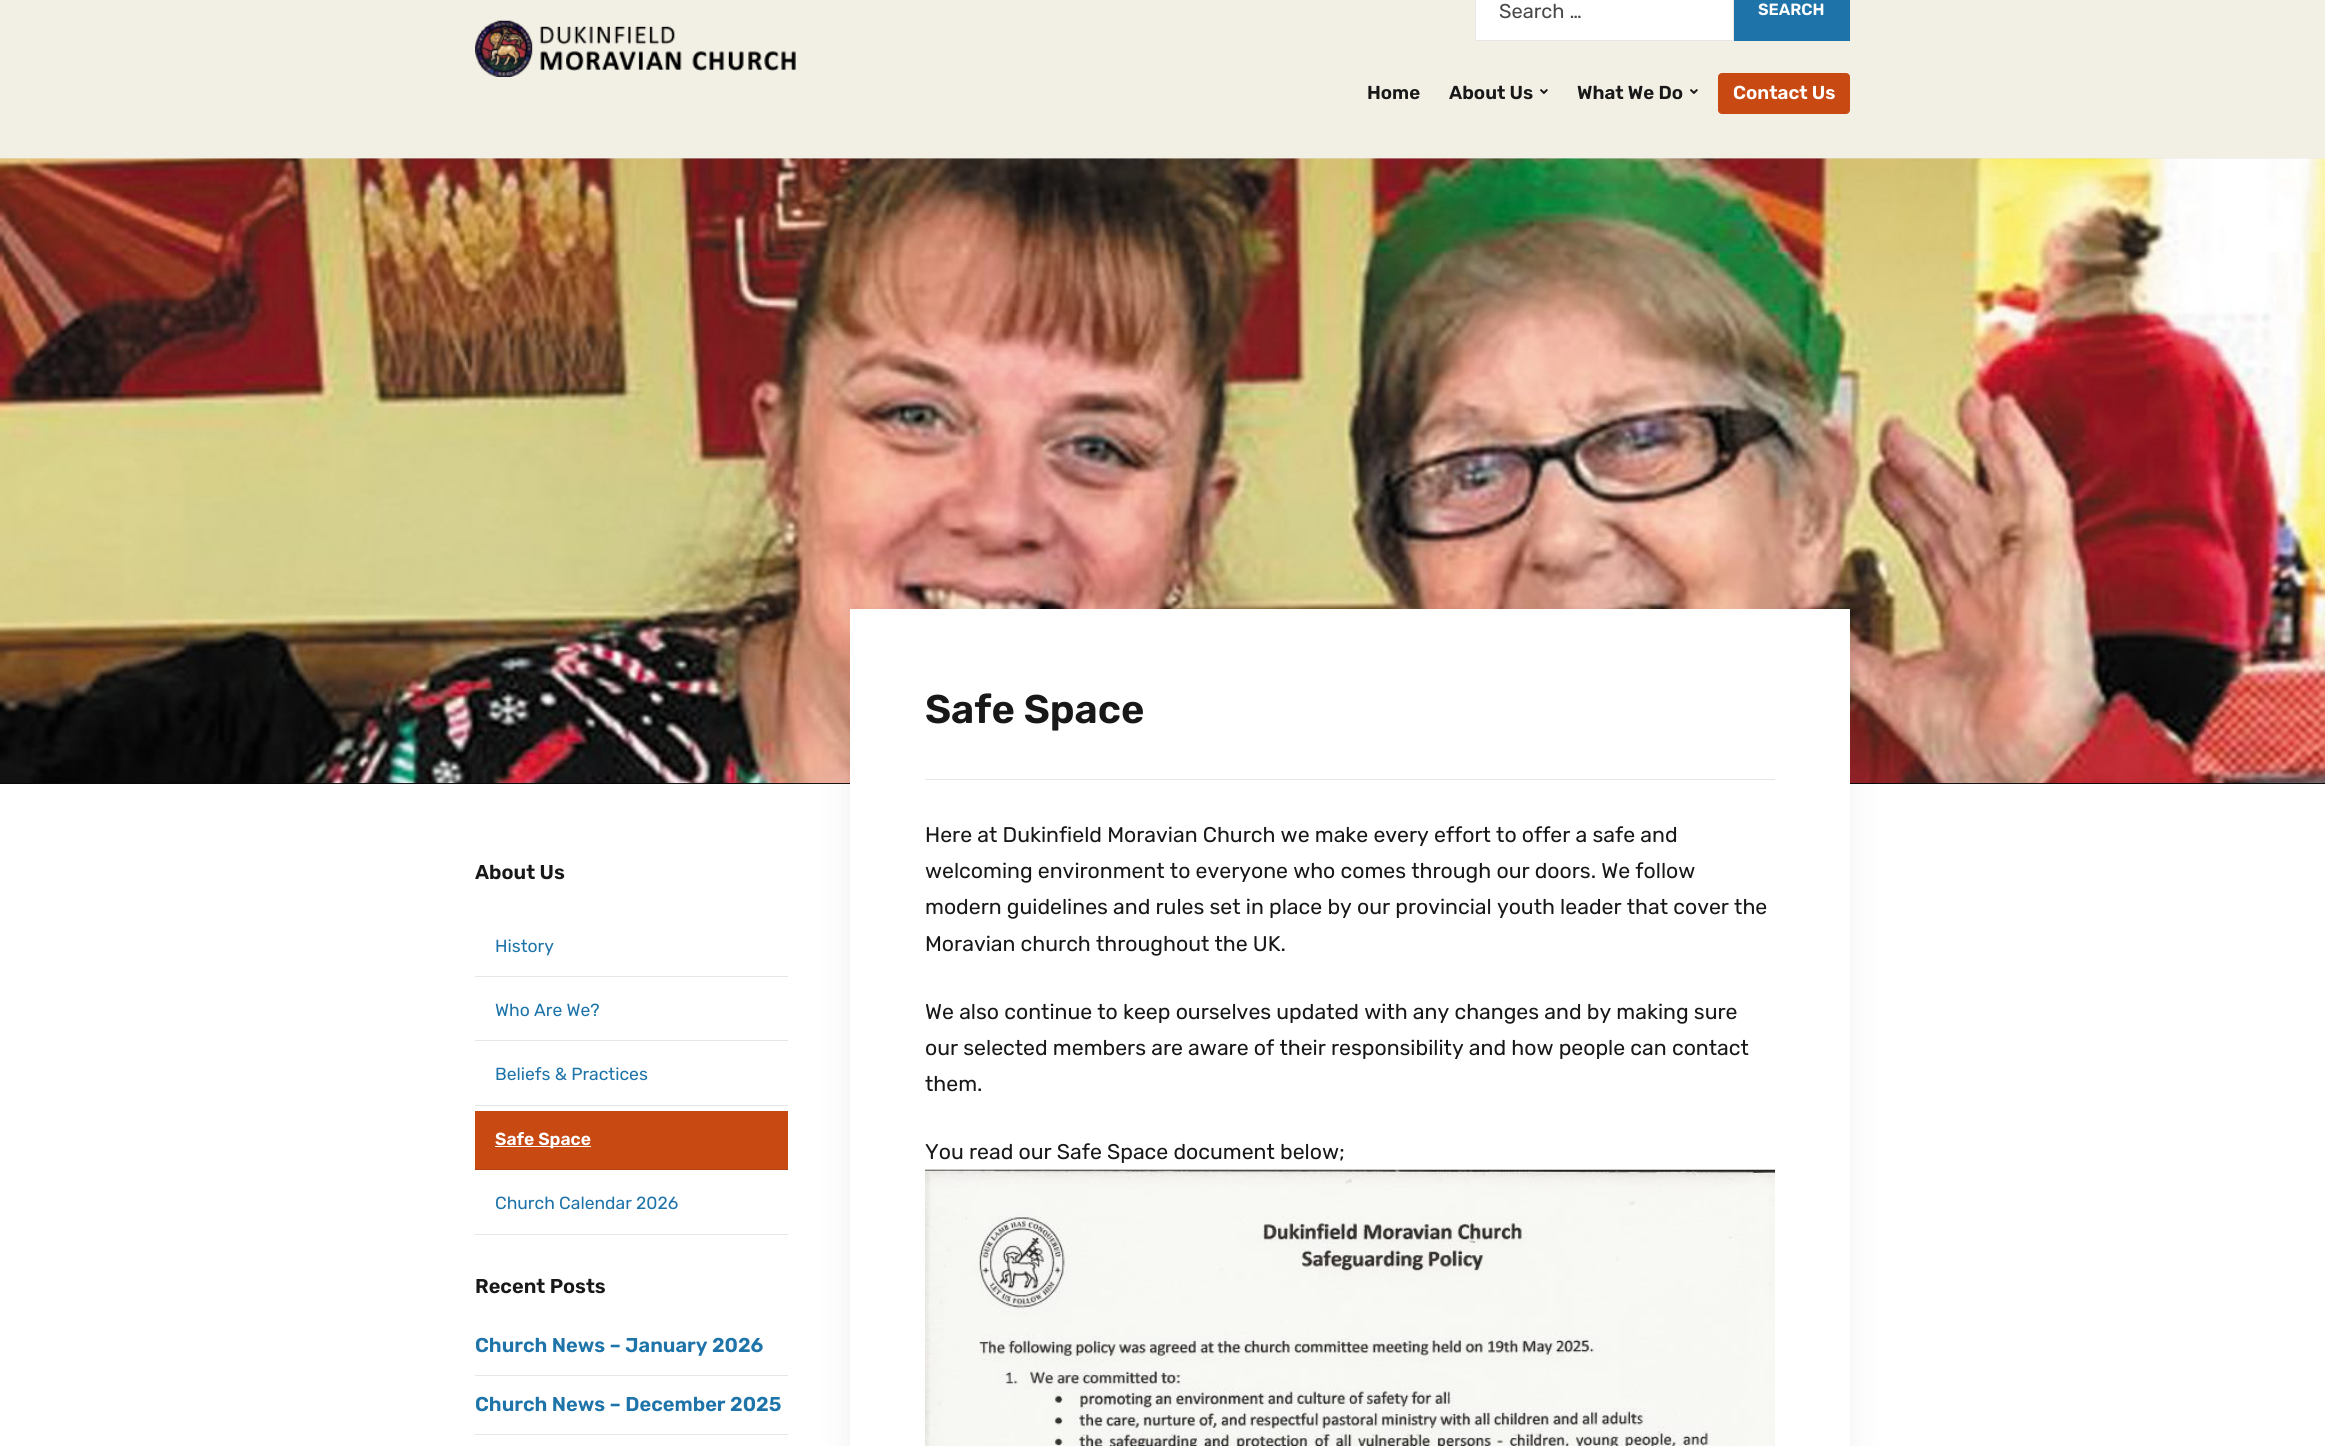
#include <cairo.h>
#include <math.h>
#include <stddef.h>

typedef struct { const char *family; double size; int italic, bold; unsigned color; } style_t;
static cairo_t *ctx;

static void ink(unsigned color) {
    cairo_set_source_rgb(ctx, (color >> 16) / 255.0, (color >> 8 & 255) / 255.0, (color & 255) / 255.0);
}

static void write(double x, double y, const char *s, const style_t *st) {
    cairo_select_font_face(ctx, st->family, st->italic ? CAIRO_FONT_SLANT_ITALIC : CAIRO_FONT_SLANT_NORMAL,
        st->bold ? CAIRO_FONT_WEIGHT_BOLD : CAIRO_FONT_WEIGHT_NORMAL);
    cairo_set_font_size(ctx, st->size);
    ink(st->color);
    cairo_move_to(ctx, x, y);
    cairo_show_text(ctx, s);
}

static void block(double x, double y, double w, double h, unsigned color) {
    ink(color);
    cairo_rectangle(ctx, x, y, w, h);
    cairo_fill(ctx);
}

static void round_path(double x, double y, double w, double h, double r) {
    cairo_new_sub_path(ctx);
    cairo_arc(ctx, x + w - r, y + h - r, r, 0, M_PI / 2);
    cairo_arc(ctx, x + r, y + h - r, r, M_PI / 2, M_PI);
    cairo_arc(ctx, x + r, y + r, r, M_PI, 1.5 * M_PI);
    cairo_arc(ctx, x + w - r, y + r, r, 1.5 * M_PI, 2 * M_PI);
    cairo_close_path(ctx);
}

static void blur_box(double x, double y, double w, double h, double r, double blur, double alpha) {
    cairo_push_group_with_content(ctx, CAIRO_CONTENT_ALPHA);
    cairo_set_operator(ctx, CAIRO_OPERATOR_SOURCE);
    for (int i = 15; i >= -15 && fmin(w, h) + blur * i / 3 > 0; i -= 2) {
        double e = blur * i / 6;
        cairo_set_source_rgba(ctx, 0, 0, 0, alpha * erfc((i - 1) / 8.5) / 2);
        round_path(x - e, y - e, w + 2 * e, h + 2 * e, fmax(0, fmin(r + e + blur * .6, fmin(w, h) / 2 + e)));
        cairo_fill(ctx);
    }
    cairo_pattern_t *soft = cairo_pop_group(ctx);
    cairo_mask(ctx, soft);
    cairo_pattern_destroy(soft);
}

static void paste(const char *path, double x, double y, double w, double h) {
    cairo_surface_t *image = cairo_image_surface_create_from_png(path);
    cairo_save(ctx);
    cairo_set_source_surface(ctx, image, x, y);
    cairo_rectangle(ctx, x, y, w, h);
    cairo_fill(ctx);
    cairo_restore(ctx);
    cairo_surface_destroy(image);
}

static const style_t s1 = {"Rubik", 20, 0, 0, 0x484848};
static const style_t s2 = {"Rubik SemiBold", 16.25, 0, 0, 0xffffff};
static const style_t s3 = {"Rubik SemiBold", 18.75, 0, 0, 0x181818};
static const style_t s4 = {"Rubik SemiBold", 18.75, 0, 0, 0xffffff};
static const style_t s5 = {"Rubik SemiBold", 20, 0, 0, 0x181818};
static const style_t s6 = {"Rubik", 17.5, 0, 0, 0x1e74a9};
static const style_t s7 = {"Rubik SemiBold", 17.5, 0, 0, 0xffffff};
static const style_t s8 = {"Rubik SemiBold", 20, 0, 0, 0x1e74a9};
static const style_t s9 = {"Rubik SemiBold", 40, 0, 0, 0x181818};
static const style_t s10 = {"Rubik", 21.25, 0, 0, 0x181818};

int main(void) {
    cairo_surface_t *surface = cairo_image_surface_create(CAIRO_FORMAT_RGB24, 2325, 1446);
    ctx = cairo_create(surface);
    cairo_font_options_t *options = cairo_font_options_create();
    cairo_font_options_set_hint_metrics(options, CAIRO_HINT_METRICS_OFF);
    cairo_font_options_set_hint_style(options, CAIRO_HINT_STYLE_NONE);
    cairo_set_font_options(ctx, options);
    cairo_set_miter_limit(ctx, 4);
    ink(0xffffff);
    cairo_paint(ctx);
    block(0, 0, 2325, 158, 0xf2f0e4);
    block(0, 158, 2325, 1, 0xe7e3e0);
    paste("pic1.png", 475, 20, 321, 57);
    ink(0xffffff);
    cairo_rectangle(ctx, 1475.5, -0.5, 258, 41);
    cairo_fill_preserve(ctx);
    ink(0xe6e6e6);
    cairo_set_line_width(ctx, 1);
    cairo_stroke(ctx);
    write(1499, 18, "Search …", &s1);
    block(1734, 0, 116, 41, 0x1e74a9);
    write(1758, 15, "SEARCH", &s2);
    write(1367, 99, "Home", &s3);
    write(1449, 99, "About Us", &s3);
    paste("pic2.png", 1540, 89, 8, 5);
    write(1577, 99, "What We Do", &s3);
    paste("pic2.png", 1690, 89, 8, 5);
    ink(0xc94913);
    round_path(1718, 73, 132, 41, 4);
    cairo_fill(ctx);
    write(1733, 99, "Contact Us", &s4);
    block(0, 783, 2325, 1, 0x090909);
    paste("pic3.png", 0, 158, 2325, 626);
    write(475, 879, "About Us", &s5);
    block(475, 976, 313, 1, 0xe6e6e6);
    write(495, 952, "History", &s6);
    block(475, 1040, 313, 1, 0xe6e6e6);
    write(495, 1016, "Who Are We?", &s6);
    block(475, 1105, 313, 1, 0xe6e6e6);
    write(495, 1080, "Beliefs & Practices", &s6);
    block(475, 1111, 313, 58, 0xc94913);
    block(475, 1169, 313, 1, 0xb54211);
    block(495, 1146, 96, 1, 0xffffff);
    write(495, 1145, "Safe Space", &s7);
    block(475, 1234, 313, 1, 0xe6e6e6);
    write(495, 1209, "Church Calendar 2026", &s6);
    write(475, 1293, "Recent Posts", &s5);
    block(475, 1375, 313, 1, 0xe6e6e6);
    write(475, 1352, "Church News – January 2026", &s8);
    block(475, 1434, 313, 1, 0xe6e6e6);
    write(475, 1411, "Church News – December 2025", &s8);
    ink(0x000000);
    blur_box(850, 609, 1000, 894, 0, 19, 0.06);
    block(850, 609, 1000, 837, 0xffffff);
    block(925, 779, 850, 1, 0xe6e6e6);
    write(925, 723, "Safe Space", &s9);
    write(925, 842, "Here at Dukinfield Moravian Church we make every effort to offer a safe and", &s10);
    write(925, 878, "welcoming environment to everyone who comes through our doors. We follow", &s10);
    write(925, 914, "modern guidelines and rules set in place by our provincial youth leader that cover the", &s10);
    write(925, 951, "Moravian church throughout the UK.", &s10);
    write(925, 1019, "We also continue to keep ourselves updated with any changes and by making sure", &s10);
    write(925, 1055, "our selected members are aware of their responsibility and how people can contact", &s10);
    write(925, 1091, "them.", &s10);
    write(925, 1159, "You read our Safe Space document below;", &s10);
    paste("pic4.png", 925, 1169, 850, 277);
    cairo_surface_write_to_png(surface, "screenshot.png");
    cairo_font_options_destroy(options);
    cairo_destroy(ctx);
    cairo_surface_destroy(surface);
    return 0;
}
